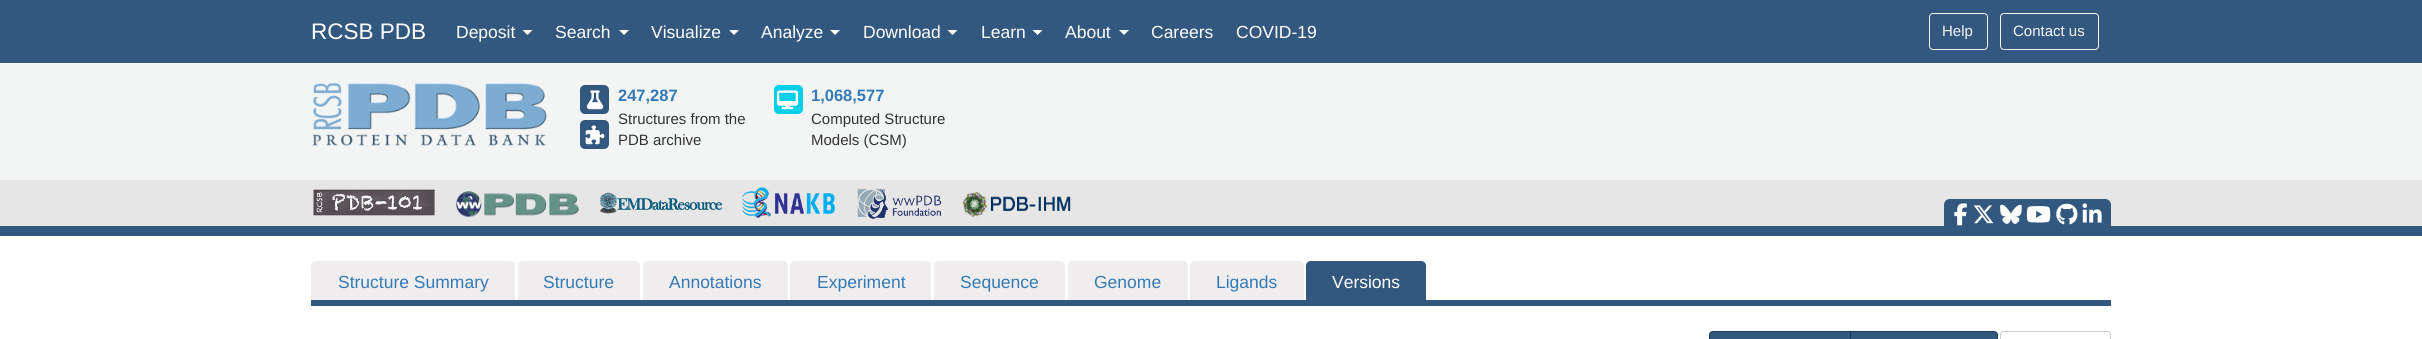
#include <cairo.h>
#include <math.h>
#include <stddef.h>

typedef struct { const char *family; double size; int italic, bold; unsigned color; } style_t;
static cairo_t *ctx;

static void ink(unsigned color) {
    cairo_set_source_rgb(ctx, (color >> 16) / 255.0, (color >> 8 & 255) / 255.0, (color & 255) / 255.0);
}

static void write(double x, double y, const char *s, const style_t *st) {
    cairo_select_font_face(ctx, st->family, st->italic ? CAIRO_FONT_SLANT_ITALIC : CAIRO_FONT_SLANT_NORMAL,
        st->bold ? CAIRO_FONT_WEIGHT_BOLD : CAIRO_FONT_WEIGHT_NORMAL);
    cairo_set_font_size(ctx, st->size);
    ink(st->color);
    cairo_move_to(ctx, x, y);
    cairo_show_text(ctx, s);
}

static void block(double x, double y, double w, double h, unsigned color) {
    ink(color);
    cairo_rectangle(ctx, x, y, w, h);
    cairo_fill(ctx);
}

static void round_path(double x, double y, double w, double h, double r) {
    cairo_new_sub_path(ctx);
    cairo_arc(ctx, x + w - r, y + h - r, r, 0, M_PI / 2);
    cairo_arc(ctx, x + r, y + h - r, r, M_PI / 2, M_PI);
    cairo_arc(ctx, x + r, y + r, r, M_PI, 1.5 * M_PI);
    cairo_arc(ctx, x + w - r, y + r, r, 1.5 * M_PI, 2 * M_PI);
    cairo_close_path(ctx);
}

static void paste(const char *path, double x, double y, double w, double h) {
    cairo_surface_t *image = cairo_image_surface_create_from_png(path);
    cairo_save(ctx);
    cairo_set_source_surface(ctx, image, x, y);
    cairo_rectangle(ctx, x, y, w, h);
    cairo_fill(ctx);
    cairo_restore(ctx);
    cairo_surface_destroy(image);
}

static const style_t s1 = {"Liberation Sans", 22.5, 0, 0, 0xffffff};
static const style_t s2 = {"Liberation Sans", 17.5, 0, 0, 0xffffff};
static const style_t s3 = {"Liberation Sans", 15, 0, 0, 0xf3f5f4};
static const style_t s4 = {"Liberation Sans", 16.5, 0, 1, 0x337ab7};
static const style_t s5 = {"Liberation Sans", 15, 0, 0, 0x333333};
static const style_t s6 = {"Liberation Sans", 17.5, 0, 0, 0x337ab7};

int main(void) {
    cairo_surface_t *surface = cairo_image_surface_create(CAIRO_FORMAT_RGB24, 2422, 339);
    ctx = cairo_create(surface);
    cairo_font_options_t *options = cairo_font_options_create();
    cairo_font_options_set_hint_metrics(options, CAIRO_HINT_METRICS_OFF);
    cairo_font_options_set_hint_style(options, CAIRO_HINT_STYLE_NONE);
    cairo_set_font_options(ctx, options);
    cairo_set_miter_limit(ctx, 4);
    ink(0xffffff);
    cairo_paint(ctx);
    block(0, 0, 2422, 63, 0x325880);
    write(311, 39, "RCSB PDB", &s1);
    write(456, 38, "Deposit", &s2);
    cairo_new_path(ctx);
    cairo_move_to(ctx, 522.5, 30);
    cairo_line_to(ctx, 532.5, 30);
    cairo_line_to(ctx, 527.5, 35);
    cairo_close_path(ctx);
    cairo_fill(ctx);
    write(555, 38, "Search", &s2);
    cairo_new_path(ctx);
    cairo_move_to(ctx, 619, 30);
    cairo_line_to(ctx, 629, 30);
    cairo_line_to(ctx, 624, 35);
    cairo_close_path(ctx);
    cairo_fill(ctx);
    write(651, 38, "Visualize", &s2);
    cairo_new_path(ctx);
    cairo_move_to(ctx, 729, 30);
    cairo_line_to(ctx, 739, 30);
    cairo_line_to(ctx, 734, 35);
    cairo_close_path(ctx);
    cairo_fill(ctx);
    write(761, 38, "Analyze", &s2);
    cairo_new_path(ctx);
    cairo_move_to(ctx, 830, 30);
    cairo_line_to(ctx, 840, 30);
    cairo_line_to(ctx, 835, 35);
    cairo_close_path(ctx);
    cairo_fill(ctx);
    write(863, 38, "Download", &s2);
    cairo_new_path(ctx);
    cairo_move_to(ctx, 947.5, 30);
    cairo_line_to(ctx, 957.5, 30);
    cairo_line_to(ctx, 952.5, 35);
    cairo_close_path(ctx);
    cairo_fill(ctx);
    write(981, 38, "Learn", &s2);
    cairo_new_path(ctx);
    cairo_move_to(ctx, 1032.5, 30);
    cairo_line_to(ctx, 1042.5, 30);
    cairo_line_to(ctx, 1037.5, 35);
    cairo_close_path(ctx);
    cairo_fill(ctx);
    write(1065, 38, "About", &s2);
    cairo_new_path(ctx);
    cairo_move_to(ctx, 1119, 30);
    cairo_line_to(ctx, 1129, 30);
    cairo_line_to(ctx, 1124, 35);
    cairo_close_path(ctx);
    cairo_fill(ctx);
    write(1151, 38, "Careers", &s2);
    write(1236, 38, "COVID-19", &s2);
    round_path(1929.5, 13.5, 58, 36, 3.5);
    ink(0xf3f5f4);
    cairo_set_line_width(ctx, 1);
    cairo_stroke(ctx);
    write(1942, 36, "Help", &s3);
    round_path(2000.5, 13.5, 98, 36, 3.5);
    cairo_stroke(ctx);
    write(2013, 36, "Contact us", &s3);
    block(0, 63, 2422, 117, 0xf3f5f4);
    block(0, 226, 2422, 10, 0x325880);
    paste("pic1.png", 312, 83, 235, 63);
    round_path(580, 85, 29, 29, 5);
    cairo_fill(ctx);
    paste("pic2.png", 586, 90, 18, 20);
    round_path(580, 120, 29, 29, 5);
    cairo_fill(ctx);
    paste("pic3.png", 585, 125, 20, 20);
    write(618, 101, "247,287", &s4);
    write(618, 124, "Structures from the", &s5);
    write(618, 145, "PDB archive", &s5);
    ink(0x05d0e7);
    round_path(774, 85, 29, 29, 5);
    cairo_fill(ctx);
    paste("pic4.png", 776, 90, 23, 20);
    write(811, 101, "1,068,577", &s4);
    write(811, 124, "Computed Structure", &s5);
    write(811, 145, "Models (CSM)", &s5);
    block(0, 180, 2422, 46, 0xe6e6e6);
    paste("pic5.png", 313, 189, 122, 27);
    paste("pic6.png", 456, 191, 123, 27);
    paste("pic7.png", 599, 192, 124, 22);
    paste("pic8.png", 742, 187, 93, 31);
    paste("pic9.png", 857, 188, 85, 31);
    paste("pic10.png", 962, 191, 109, 27);
    ink(0x325880);
    cairo_new_path(ctx);
    cairo_move_to(ctx, 1950, 199);
    cairo_line_to(ctx, 2105, 199);
    cairo_curve_to(ctx, 2108.5, 199, 2111, 201.5, 2111, 205);
    cairo_line_to(ctx, 2111, 231);
    cairo_line_to(ctx, 1944, 231);
    cairo_line_to(ctx, 1944, 205);
    cairo_curve_to(ctx, 1944, 201.5, 1946.5, 199, 1950, 199);
    cairo_close_path(ctx);
    cairo_fill(ctx);
    paste("pic11.png", 1954, 203, 13, 23);
    paste("pic12.png", 1973, 205, 21, 19);
    paste("pic13.png", 2000, 204, 22, 20);
    paste("pic14.png", 2026, 206, 25, 17);
    paste("pic15.png", 2056, 203, 22, 22);
    paste("pic16.png", 2082, 203, 20, 20);
    block(311, 300, 1800, 6, 0x325880);
    ink(0xefeded);
    cairo_new_path(ctx);
    cairo_move_to(ctx, 316, 261);
    cairo_line_to(ctx, 510, 261);
    cairo_curve_to(ctx, 513, 261, 515, 263, 515, 266);
    cairo_line_to(ctx, 515, 300);
    cairo_line_to(ctx, 311, 300);
    cairo_line_to(ctx, 311, 266);
    cairo_curve_to(ctx, 311, 263, 313, 261, 316, 261);
    cairo_close_path(ctx);
    cairo_fill(ctx);
    write(338, 288, "Structure Summary", &s6);
    ink(0xefeded);
    cairo_new_path(ctx);
    cairo_move_to(ctx, 523, 261);
    cairo_line_to(ctx, 635, 261);
    cairo_curve_to(ctx, 638, 261, 640, 263, 640, 266);
    cairo_line_to(ctx, 640, 300);
    cairo_line_to(ctx, 518, 300);
    cairo_line_to(ctx, 518, 266);
    cairo_curve_to(ctx, 518, 263, 520, 261, 523, 261);
    cairo_close_path(ctx);
    cairo_fill(ctx);
    write(543, 288, "Structure", &s6);
    ink(0xefeded);
    cairo_new_path(ctx);
    cairo_move_to(ctx, 648, 261);
    cairo_line_to(ctx, 783, 261);
    cairo_curve_to(ctx, 786, 261, 788, 263, 788, 266);
    cairo_line_to(ctx, 788, 300);
    cairo_line_to(ctx, 643, 300);
    cairo_line_to(ctx, 643, 266);
    cairo_curve_to(ctx, 643, 263, 645, 261, 648, 261);
    cairo_close_path(ctx);
    cairo_fill(ctx);
    write(669, 288, "Annotations", &s6);
    ink(0xefeded);
    cairo_new_path(ctx);
    cairo_move_to(ctx, 795, 261);
    cairo_line_to(ctx, 926, 261);
    cairo_curve_to(ctx, 929, 261, 931, 263, 931, 266);
    cairo_line_to(ctx, 931, 300);
    cairo_line_to(ctx, 790, 300);
    cairo_line_to(ctx, 790, 266);
    cairo_curve_to(ctx, 790, 263, 792, 261, 795, 261);
    cairo_close_path(ctx);
    cairo_fill(ctx);
    write(817, 288, "Experiment", &s6);
    ink(0xefeded);
    cairo_new_path(ctx);
    cairo_move_to(ctx, 939, 261);
    cairo_line_to(ctx, 1060, 261);
    cairo_curve_to(ctx, 1063, 261, 1065, 263, 1065, 266);
    cairo_line_to(ctx, 1065, 300);
    cairo_line_to(ctx, 934, 300);
    cairo_line_to(ctx, 934, 266);
    cairo_curve_to(ctx, 934, 263, 936, 261, 939, 261);
    cairo_close_path(ctx);
    cairo_fill(ctx);
    write(960, 288, "Sequence", &s6);
    ink(0xefeded);
    cairo_new_path(ctx);
    cairo_move_to(ctx, 1073, 261);
    cairo_line_to(ctx, 1183, 261);
    cairo_curve_to(ctx, 1186, 261, 1188, 263, 1188, 266);
    cairo_line_to(ctx, 1188, 300);
    cairo_line_to(ctx, 1068, 300);
    cairo_line_to(ctx, 1068, 266);
    cairo_curve_to(ctx, 1068, 263, 1070, 261, 1073, 261);
    cairo_close_path(ctx);
    cairo_fill(ctx);
    write(1094, 288, "Genome", &s6);
    ink(0xefeded);
    cairo_new_path(ctx);
    cairo_move_to(ctx, 1195, 261);
    cairo_line_to(ctx, 1299, 261);
    cairo_curve_to(ctx, 1302, 261, 1304, 263, 1304, 266);
    cairo_line_to(ctx, 1304, 300);
    cairo_line_to(ctx, 1190, 300);
    cairo_line_to(ctx, 1190, 266);
    cairo_curve_to(ctx, 1190, 263, 1192, 261, 1195, 261);
    cairo_close_path(ctx);
    cairo_fill(ctx);
    write(1216, 288, "Ligands", &s6);
    ink(0x325880);
    cairo_new_path(ctx);
    cairo_move_to(ctx, 1311, 261);
    cairo_line_to(ctx, 1421, 261);
    cairo_curve_to(ctx, 1424, 261, 1426, 263, 1426, 266);
    cairo_line_to(ctx, 1426, 300);
    cairo_line_to(ctx, 1306, 300);
    cairo_line_to(ctx, 1306, 266);
    cairo_curve_to(ctx, 1306, 263, 1308, 261, 1311, 261);
    cairo_close_path(ctx);
    cairo_fill(ctx);
    write(1332, 288, "Versions", &s2);
    ink(0x325880);
    cairo_new_path(ctx);
    cairo_move_to(ctx, 1713, 331.5);
    cairo_line_to(ctx, 1850.5, 331.5);
    cairo_line_to(ctx, 1850.5, 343.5);
    cairo_line_to(ctx, 1713, 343.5);
    cairo_curve_to(ctx, 1711, 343.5, 1709.5, 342, 1709.5, 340);
    cairo_line_to(ctx, 1709.5, 335);
    cairo_curve_to(ctx, 1709.5, 333, 1711, 331.5, 1713, 331.5);
    cairo_close_path(ctx);
    cairo_fill_preserve(ctx);
    ink(0x18385a);
    cairo_stroke(ctx);
    ink(0x325880);
    cairo_new_path(ctx);
    cairo_move_to(ctx, 1850.5, 331.5);
    cairo_line_to(ctx, 1994, 331.5);
    cairo_curve_to(ctx, 1996, 331.5, 1997.5, 333, 1997.5, 335);
    cairo_line_to(ctx, 1997.5, 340);
    cairo_curve_to(ctx, 1997.5, 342, 1996, 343.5, 1994, 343.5);
    cairo_line_to(ctx, 1850.5, 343.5);
    cairo_close_path(ctx);
    cairo_fill_preserve(ctx);
    ink(0x18385a);
    cairo_stroke(ctx);
    round_path(2000.5, 331.5, 110, 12, 3.5);
    ink(0xcccccc);
    cairo_stroke(ctx);
    cairo_surface_write_to_png(surface, "screenshot.png");
    cairo_font_options_destroy(options);
    cairo_destroy(ctx);
    cairo_surface_destroy(surface);
    return 0;
}
